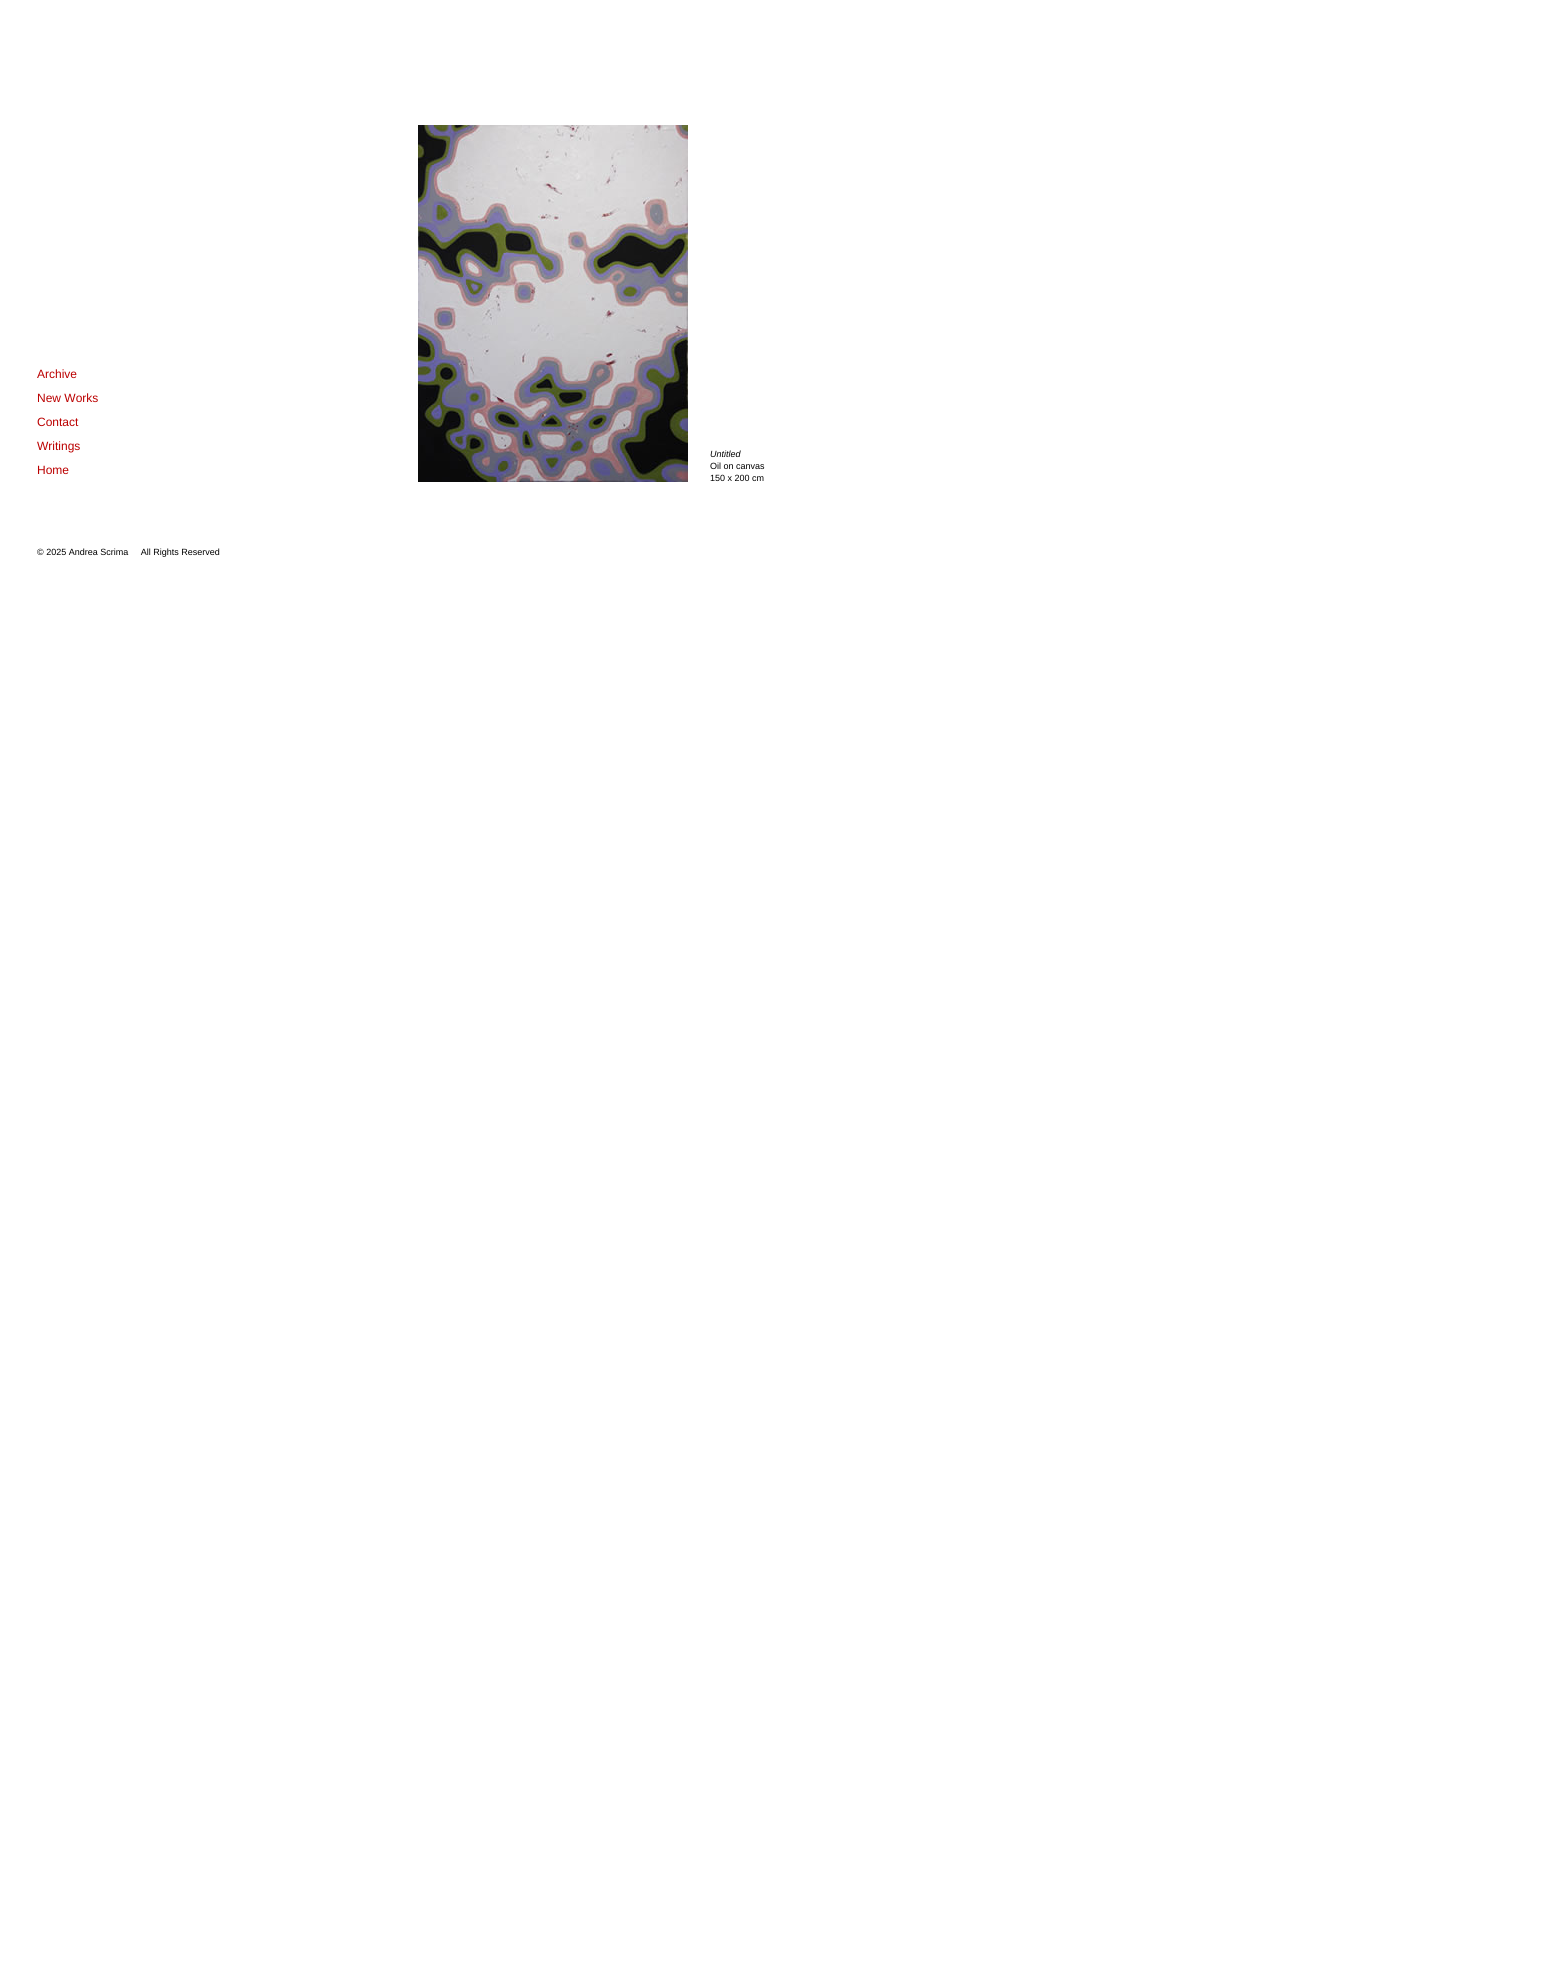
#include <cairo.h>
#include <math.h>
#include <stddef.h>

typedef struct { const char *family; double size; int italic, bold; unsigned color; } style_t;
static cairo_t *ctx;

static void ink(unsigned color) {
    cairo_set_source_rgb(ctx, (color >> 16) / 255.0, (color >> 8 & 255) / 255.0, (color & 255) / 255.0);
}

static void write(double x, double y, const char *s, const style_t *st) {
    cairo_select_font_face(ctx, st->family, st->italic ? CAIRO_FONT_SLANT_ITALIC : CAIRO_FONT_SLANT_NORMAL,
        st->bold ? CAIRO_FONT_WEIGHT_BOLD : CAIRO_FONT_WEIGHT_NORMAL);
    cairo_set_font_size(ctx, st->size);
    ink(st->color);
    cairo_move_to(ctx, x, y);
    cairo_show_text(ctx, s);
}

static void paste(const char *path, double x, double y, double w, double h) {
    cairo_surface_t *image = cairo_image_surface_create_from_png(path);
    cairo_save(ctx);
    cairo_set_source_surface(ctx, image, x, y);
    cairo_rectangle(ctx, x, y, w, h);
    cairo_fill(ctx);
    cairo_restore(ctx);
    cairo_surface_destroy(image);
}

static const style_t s1 = {"Liberation Sans", 12, 0, 0, 0xbb0000};
static const style_t s2 = {"Liberation Sans", 9, 0, 0, 0x000000};
static const style_t s3 = {"Liberation Sans", 9, 1, 0, 0x000000};

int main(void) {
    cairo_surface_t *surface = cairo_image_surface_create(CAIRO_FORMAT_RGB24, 1550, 1973);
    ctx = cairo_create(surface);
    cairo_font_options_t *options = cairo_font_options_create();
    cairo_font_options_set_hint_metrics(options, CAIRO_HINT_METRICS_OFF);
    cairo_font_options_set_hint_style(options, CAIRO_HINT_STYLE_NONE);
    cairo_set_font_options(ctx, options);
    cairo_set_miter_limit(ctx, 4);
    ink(0xffffff);
    cairo_paint(ctx);
    write(37, 378, "Archive", &s1);
    write(37, 402, "New Works", &s1);
    write(37, 426, "Contact", &s1);
    write(37, 450, "Writings", &s1);
    write(37, 474, "Home", &s1);
    write(37, 555, "© 2025 Andrea Scrima     All Rights Reserved", &s2);
    paste("pic1.png", 418, 125, 270, 357);
    write(710, 457, "Untitled", &s3);
    write(710, 469, "Oil on canvas", &s2);
    write(710, 481, "150 x 200 cm", &s2);
    cairo_surface_write_to_png(surface, "screenshot.png");
    cairo_font_options_destroy(options);
    cairo_destroy(ctx);
    cairo_surface_destroy(surface);
    return 0;
}
